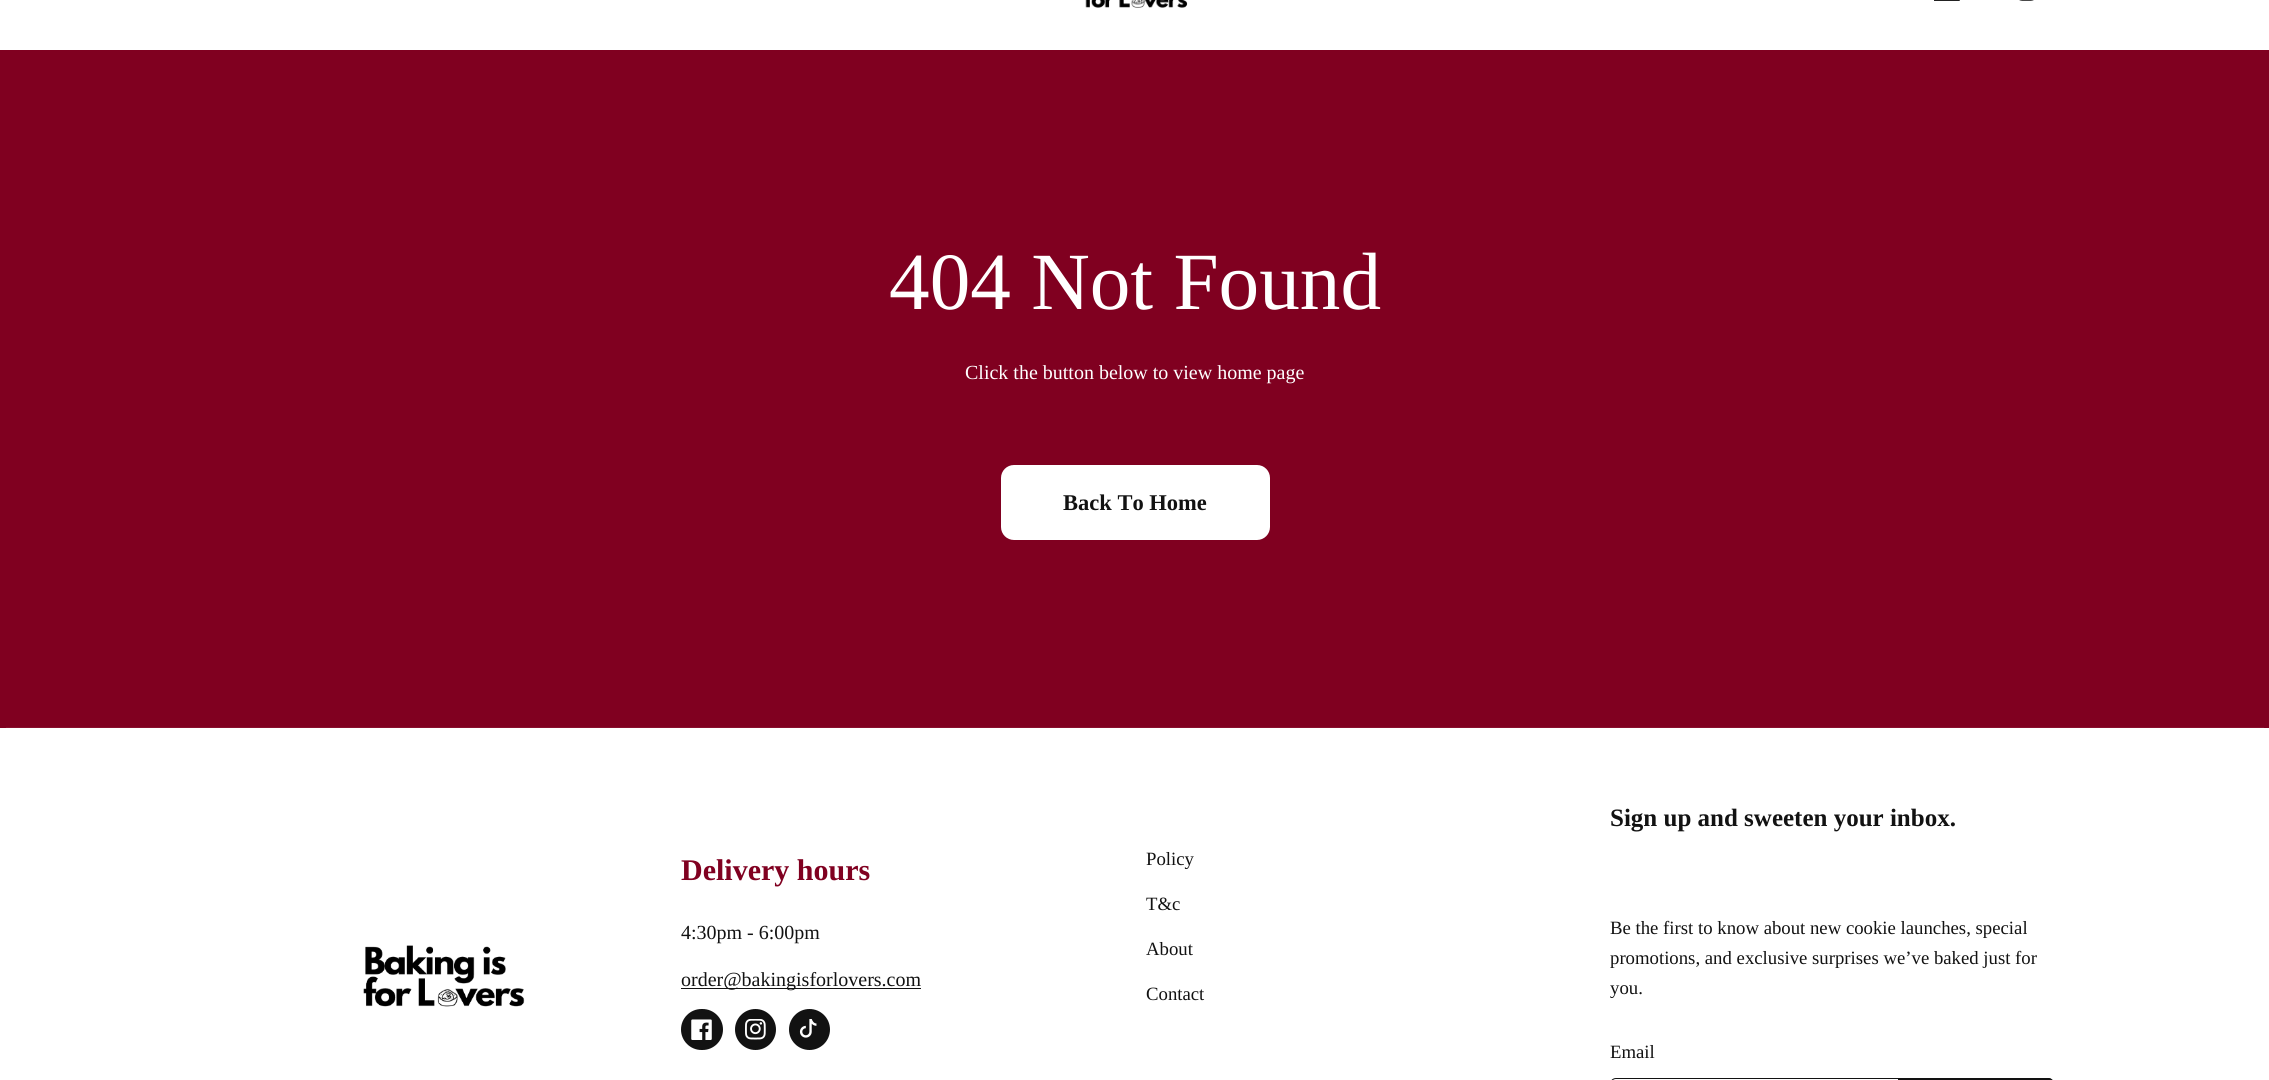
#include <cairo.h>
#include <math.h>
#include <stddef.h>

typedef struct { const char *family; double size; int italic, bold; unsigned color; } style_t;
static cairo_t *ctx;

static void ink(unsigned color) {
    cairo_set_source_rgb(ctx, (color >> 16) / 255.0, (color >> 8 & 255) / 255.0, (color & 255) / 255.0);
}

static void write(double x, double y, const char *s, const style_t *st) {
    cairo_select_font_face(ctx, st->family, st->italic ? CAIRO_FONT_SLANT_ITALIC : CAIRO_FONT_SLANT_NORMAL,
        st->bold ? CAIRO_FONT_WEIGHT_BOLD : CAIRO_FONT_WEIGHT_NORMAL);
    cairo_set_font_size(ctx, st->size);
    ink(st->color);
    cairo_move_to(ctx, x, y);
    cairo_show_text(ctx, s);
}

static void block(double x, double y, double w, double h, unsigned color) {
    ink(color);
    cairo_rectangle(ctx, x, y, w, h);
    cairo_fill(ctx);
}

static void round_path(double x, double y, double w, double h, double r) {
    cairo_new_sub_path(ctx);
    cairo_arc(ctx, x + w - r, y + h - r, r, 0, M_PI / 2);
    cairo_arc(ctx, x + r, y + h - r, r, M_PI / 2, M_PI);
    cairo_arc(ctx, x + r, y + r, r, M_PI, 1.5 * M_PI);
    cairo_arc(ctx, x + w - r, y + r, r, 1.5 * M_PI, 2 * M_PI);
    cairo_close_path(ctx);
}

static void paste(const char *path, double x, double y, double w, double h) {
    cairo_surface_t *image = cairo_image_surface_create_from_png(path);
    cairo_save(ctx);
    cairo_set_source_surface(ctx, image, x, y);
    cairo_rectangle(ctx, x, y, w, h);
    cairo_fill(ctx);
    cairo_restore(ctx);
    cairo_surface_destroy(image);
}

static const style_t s1 = {"Liberation Serif", 81.25, 0, 0, 0xffffff};
static const style_t s2 = {"Liberation Serif", 20, 0, 0, 0xffffff};
static const style_t s3 = {"Liberation Serif", 22.5, 0, 1, 0x121212};
static const style_t s4 = {"Liberation Serif", 30, 0, 1, 0x800020};
static const style_t s5 = {"Liberation Serif", 20, 0, 0, 0x121212};
static const style_t s6 = {"Liberation Serif", 18.75, 0, 0, 0x121212};
static const style_t s7 = {"Liberation Serif", 25, 0, 1, 0x121212};

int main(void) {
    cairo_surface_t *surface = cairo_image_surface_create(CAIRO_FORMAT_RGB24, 2269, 1080);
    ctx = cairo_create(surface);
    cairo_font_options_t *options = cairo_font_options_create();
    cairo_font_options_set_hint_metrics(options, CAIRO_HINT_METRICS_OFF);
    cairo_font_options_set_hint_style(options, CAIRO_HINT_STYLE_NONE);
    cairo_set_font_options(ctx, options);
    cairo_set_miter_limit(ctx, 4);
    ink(0x800020);
    cairo_paint(ctx);
    block(0, 0, 2269, 50, 0xffffff);
    paste("pic1.png", 1085, 0, 103, 8);
    paste("pic2.png", 1934, 0, 26, 1);
    paste("pic3.png", 2019, 0, 15, 1);
    write(889, 309, "404 Not Found", &s1);
    write(965, 379, "Click the button below to view home page", &s2);
    round_path(1001, 465, 269, 75, 13);
    cairo_fill(ctx);
    write(1063, 510, "Back To Home", &s3);
    block(0, 728, 2269, 352, 0xffffff);
    paste("pic4.png", 6, 727, 2258, 1);
    paste("pic5.png", 363, 945, 162, 62);
    write(681, 880, "Delivery hours", &s4);
    write(681, 939, "4:30pm - 6:00pm", &s5);
    block(681, 988, 240, 1, 0x121212);
    write(681, 986, "order@bakingisforlovers.com", &s5);
    round_path(681, 1009, 42, 41, 20.5);
    cairo_fill(ctx);
    paste("pic6.png", 691, 1019, 21, 21);
    cairo_arc(ctx, 755.5, 1029.5, 20.5, 0, 2 * M_PI);
    cairo_fill(ctx);
    paste("pic7.png", 745, 1019, 21, 21);
    cairo_arc(ctx, 809.5, 1029.5, 20.5, 0, 2 * M_PI);
    cairo_fill(ctx);
    paste("pic8.png", 799, 1019, 18, 19);
    write(1146, 865, "Policy", &s6);
    write(1146, 910, "T&c", &s6);
    write(1146, 955, "About", &s6);
    write(1146, 1000, "Contact", &s6);
    write(1610, 826, "Sign up and sweeten your inbox.", &s7);
    write(1610, 934, "Be the first to know about new cookie launches, special", &s6);
    write(1610, 964, "promotions, and exclusive surprises we’ve baked just for", &s6);
    write(1610, 994, "you.", &s6);
    write(1610, 1058, "Email", &s6);
    round_path(1610.5, 1078.5, 443, 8, 5.5);
    cairo_set_line_width(ctx, 1);
    cairo_stroke(ctx);
    cairo_new_path(ctx);
    cairo_move_to(ctx, 1898, 1078);
    cairo_line_to(ctx, 2048, 1078);
    cairo_curve_to(ctx, 2051.5, 1078, 2054, 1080.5, 2054, 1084);
    cairo_line_to(ctx, 2054, 1080);
    cairo_curve_to(ctx, 2054, 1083.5, 2051.5, 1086, 2048, 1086);
    cairo_line_to(ctx, 1898, 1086);
    cairo_close_path(ctx);
    cairo_fill(ctx);
    cairo_surface_write_to_png(surface, "screenshot.png");
    cairo_font_options_destroy(options);
    cairo_destroy(ctx);
    cairo_surface_destroy(surface);
    return 0;
}
